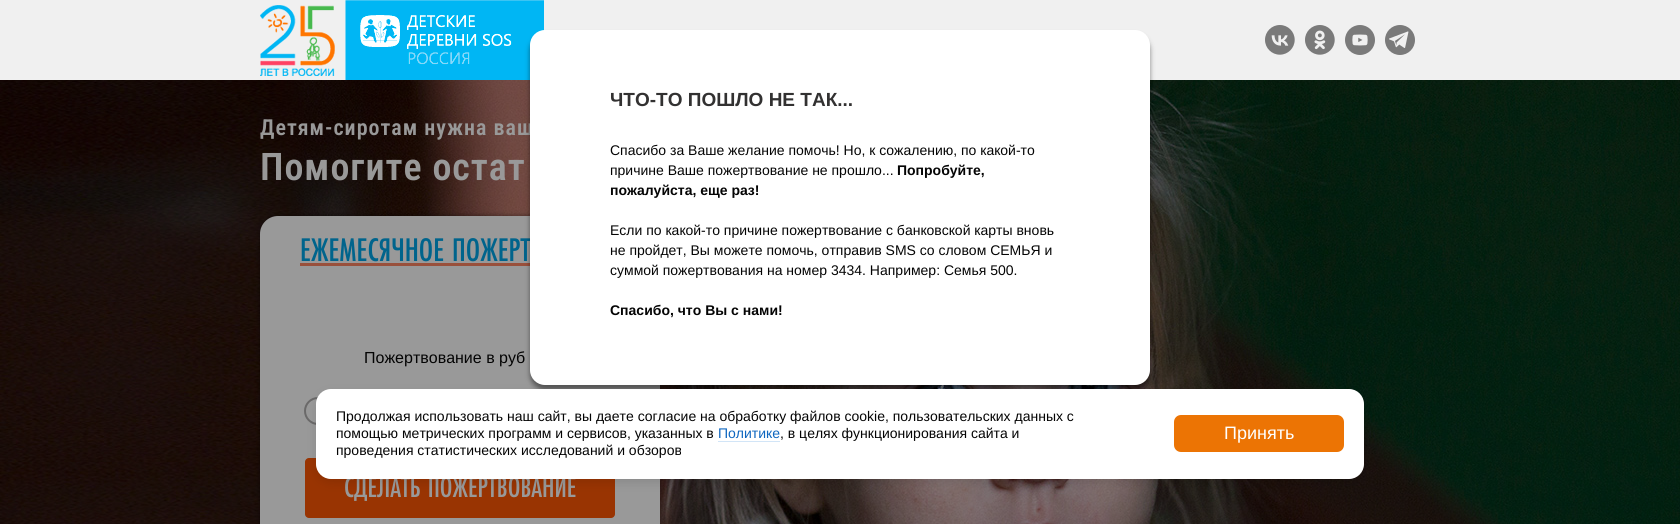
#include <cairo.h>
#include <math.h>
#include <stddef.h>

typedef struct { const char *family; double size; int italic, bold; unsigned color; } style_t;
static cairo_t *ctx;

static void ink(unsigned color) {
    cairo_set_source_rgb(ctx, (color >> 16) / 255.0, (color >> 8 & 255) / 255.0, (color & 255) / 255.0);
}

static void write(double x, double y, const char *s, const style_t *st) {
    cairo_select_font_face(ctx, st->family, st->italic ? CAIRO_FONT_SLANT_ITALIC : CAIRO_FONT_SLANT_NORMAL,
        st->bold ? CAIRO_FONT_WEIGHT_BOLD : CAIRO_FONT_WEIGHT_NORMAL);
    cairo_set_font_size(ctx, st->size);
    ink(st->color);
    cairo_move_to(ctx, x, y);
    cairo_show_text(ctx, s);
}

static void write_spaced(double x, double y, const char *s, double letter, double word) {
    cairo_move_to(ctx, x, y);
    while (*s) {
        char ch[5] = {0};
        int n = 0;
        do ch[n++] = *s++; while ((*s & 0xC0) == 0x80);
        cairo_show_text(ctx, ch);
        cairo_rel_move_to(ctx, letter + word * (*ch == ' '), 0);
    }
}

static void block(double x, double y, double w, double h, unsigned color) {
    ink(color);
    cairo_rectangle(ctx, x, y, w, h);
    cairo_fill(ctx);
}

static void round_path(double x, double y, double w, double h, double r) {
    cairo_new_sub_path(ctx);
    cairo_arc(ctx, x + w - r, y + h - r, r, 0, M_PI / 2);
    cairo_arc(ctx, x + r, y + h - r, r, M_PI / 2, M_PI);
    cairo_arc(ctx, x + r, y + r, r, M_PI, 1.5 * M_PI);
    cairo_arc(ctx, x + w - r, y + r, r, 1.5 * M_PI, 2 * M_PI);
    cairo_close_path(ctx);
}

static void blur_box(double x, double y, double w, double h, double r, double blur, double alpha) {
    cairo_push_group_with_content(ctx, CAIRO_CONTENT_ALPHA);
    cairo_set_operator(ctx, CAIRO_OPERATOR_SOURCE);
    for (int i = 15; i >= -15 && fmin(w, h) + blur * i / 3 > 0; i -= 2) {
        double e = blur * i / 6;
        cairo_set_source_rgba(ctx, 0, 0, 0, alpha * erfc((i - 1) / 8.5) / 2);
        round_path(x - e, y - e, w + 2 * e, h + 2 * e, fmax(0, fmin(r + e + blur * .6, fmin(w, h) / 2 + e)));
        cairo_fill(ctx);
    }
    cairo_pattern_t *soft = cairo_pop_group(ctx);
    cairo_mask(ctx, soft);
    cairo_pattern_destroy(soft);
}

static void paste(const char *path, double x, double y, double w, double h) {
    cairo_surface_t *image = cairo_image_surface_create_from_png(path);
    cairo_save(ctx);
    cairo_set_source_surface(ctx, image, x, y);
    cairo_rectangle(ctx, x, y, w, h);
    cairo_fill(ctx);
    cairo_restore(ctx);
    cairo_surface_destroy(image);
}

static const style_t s1 = {"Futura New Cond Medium", 34, 0, 0, 0x00648c};
static const style_t s2 = {"Liberation Sans", 16, 0, 0, 0x040404};
static const style_t s3 = {"Futura New Cond Medium", 30, 0, 0, 0x999999};
static const style_t s4 = {"Liberation Sans", 19, 0, 1, 0x323131};
static const style_t s5 = {"Liberation Sans", 14, 0, 0, 0x040404};
static const style_t s6 = {"Liberation Sans", 14, 0, 1, 0x040404};
static const style_t s7 = {"Liberation Sans", 14, 0, 0, 0x0e66bf};
static const style_t s8 = {"Liberation Sans", 18, 0, 0, 0xffffff};

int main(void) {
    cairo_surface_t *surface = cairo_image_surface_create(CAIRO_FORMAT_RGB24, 1680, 524);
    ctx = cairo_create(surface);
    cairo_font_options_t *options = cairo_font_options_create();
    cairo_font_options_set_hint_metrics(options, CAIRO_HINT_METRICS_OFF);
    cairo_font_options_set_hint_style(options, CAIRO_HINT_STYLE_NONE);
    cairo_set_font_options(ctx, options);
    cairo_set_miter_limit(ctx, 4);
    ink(0xffffff);
    cairo_paint(ctx);
    block(0, 0, 1680, 80, 0xf0f0f0);
    paste("pic1.png", 260, 0, 284, 80);
    paste("pic2.png", 1265, 25, 30, 30);
    paste("pic3.png", 1305, 25, 30, 30);
    paste("pic4.png", 1345, 25, 30, 30);
    paste("pic5.png", 1385, 25, 30, 30);
    paste("pic6.png", 0, 80, 1680, 444);
    cairo_select_font_face(ctx, "Roboto Condensed SemiBold", CAIRO_FONT_SLANT_NORMAL, CAIRO_FONT_WEIGHT_NORMAL);
    cairo_set_font_size(ctx, 22);
    ink(0x999999);
    write_spaced(260, 135, "Детям-сиротам нужна ваш", 1, 0);
    cairo_set_font_size(ctx, 38);
    write_spaced(260, 180, "Помогите остат", 1, 0);
    ink(0x000000);
    blur_box(260, 216, 400, 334, 18, 2.5, 0.45);
    ink(0x999999);
    round_path(260, 216, 400, 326, 18);
    cairo_fill(ctx);
    write(300, 261, "ЕЖЕМЕСЯЧНОЕ ПОЖЕРТ", &s1);
    block(300, 263, 230, 3, 0x99503b);
    write(364, 363, "Пожертвование в руб", &s2);
    cairo_new_path(ctx);
    cairo_arc(ctx, 318, 411, 13, 0, 2 * M_PI);
    ink(0x6a6969);
    cairo_stroke(ctx);
    ink(0x993402);
    round_path(305, 458, 310, 60, 4);
    cairo_fill(ctx);
    write(344, 497, "СДЕЛАТЬ ПОЖЕРТВОВАНИЕ", &s3);
    ink(0x000000);
    blur_box(530, 35, 620, 355, 15, 2.5, 0.45);
    ink(0xffffff);
    round_path(530, 30, 620, 355, 15);
    cairo_fill(ctx);
    write(610, 106, "ЧТО-ТО ПОШЛО НЕ ТАК...", &s4);
    write(610, 155, "Спасибо за Ваше желание помочь! Но, к сожалению, по какой-то", &s5);
    write(610, 175, "причине Ваше пожертвование не прошло...", &s5);
    write(897, 175, "Попробуйте,", &s6);
    write(610, 195, "пожалуйста, еще раз!", &s6);
    write(610, 235, "Если по какой-то причине пожертвование с банковской карты вновь", &s5);
    write(610, 255, "не пройдет, Вы можете помочь, отправив SMS со словом СЕМЬЯ и", &s5);
    write(610, 275, "суммой пожертвования на номер 3434. Например: Семья 500.", &s5);
    write(610, 315, "Спасибо, что Вы с нами!", &s6);
    ink(0x000000);
    blur_box(316, 393, 1048, 90, 15, 5, 0.1);
    ink(0xffffff);
    round_path(316, 389, 1048, 90, 15);
    cairo_fill(ctx);
    write(336, 421, "Продолжая использовать наш сайт, вы даете согласие на обработку файлов cookie, пользовательских данных с", &s5);
    write(336, 438, "помощью метрических программ и сервисов, указанных в", &s5);
    write(718, 438, "Политике", &s7);
    block(718, 441, 62, 1, 0xd2e5f7);
    write(780, 438, ", в целях функционирования сайта и", &s5);
    write(336, 455, "проведения статистических исследований и обзоров", &s5);
    ink(0xec7404);
    round_path(1174, 415, 170, 37, 7);
    cairo_fill(ctx);
    write(1224, 439, "Принять", &s8);
    cairo_surface_write_to_png(surface, "screenshot.png");
    cairo_font_options_destroy(options);
    cairo_destroy(ctx);
    cairo_surface_destroy(surface);
    return 0;
}
